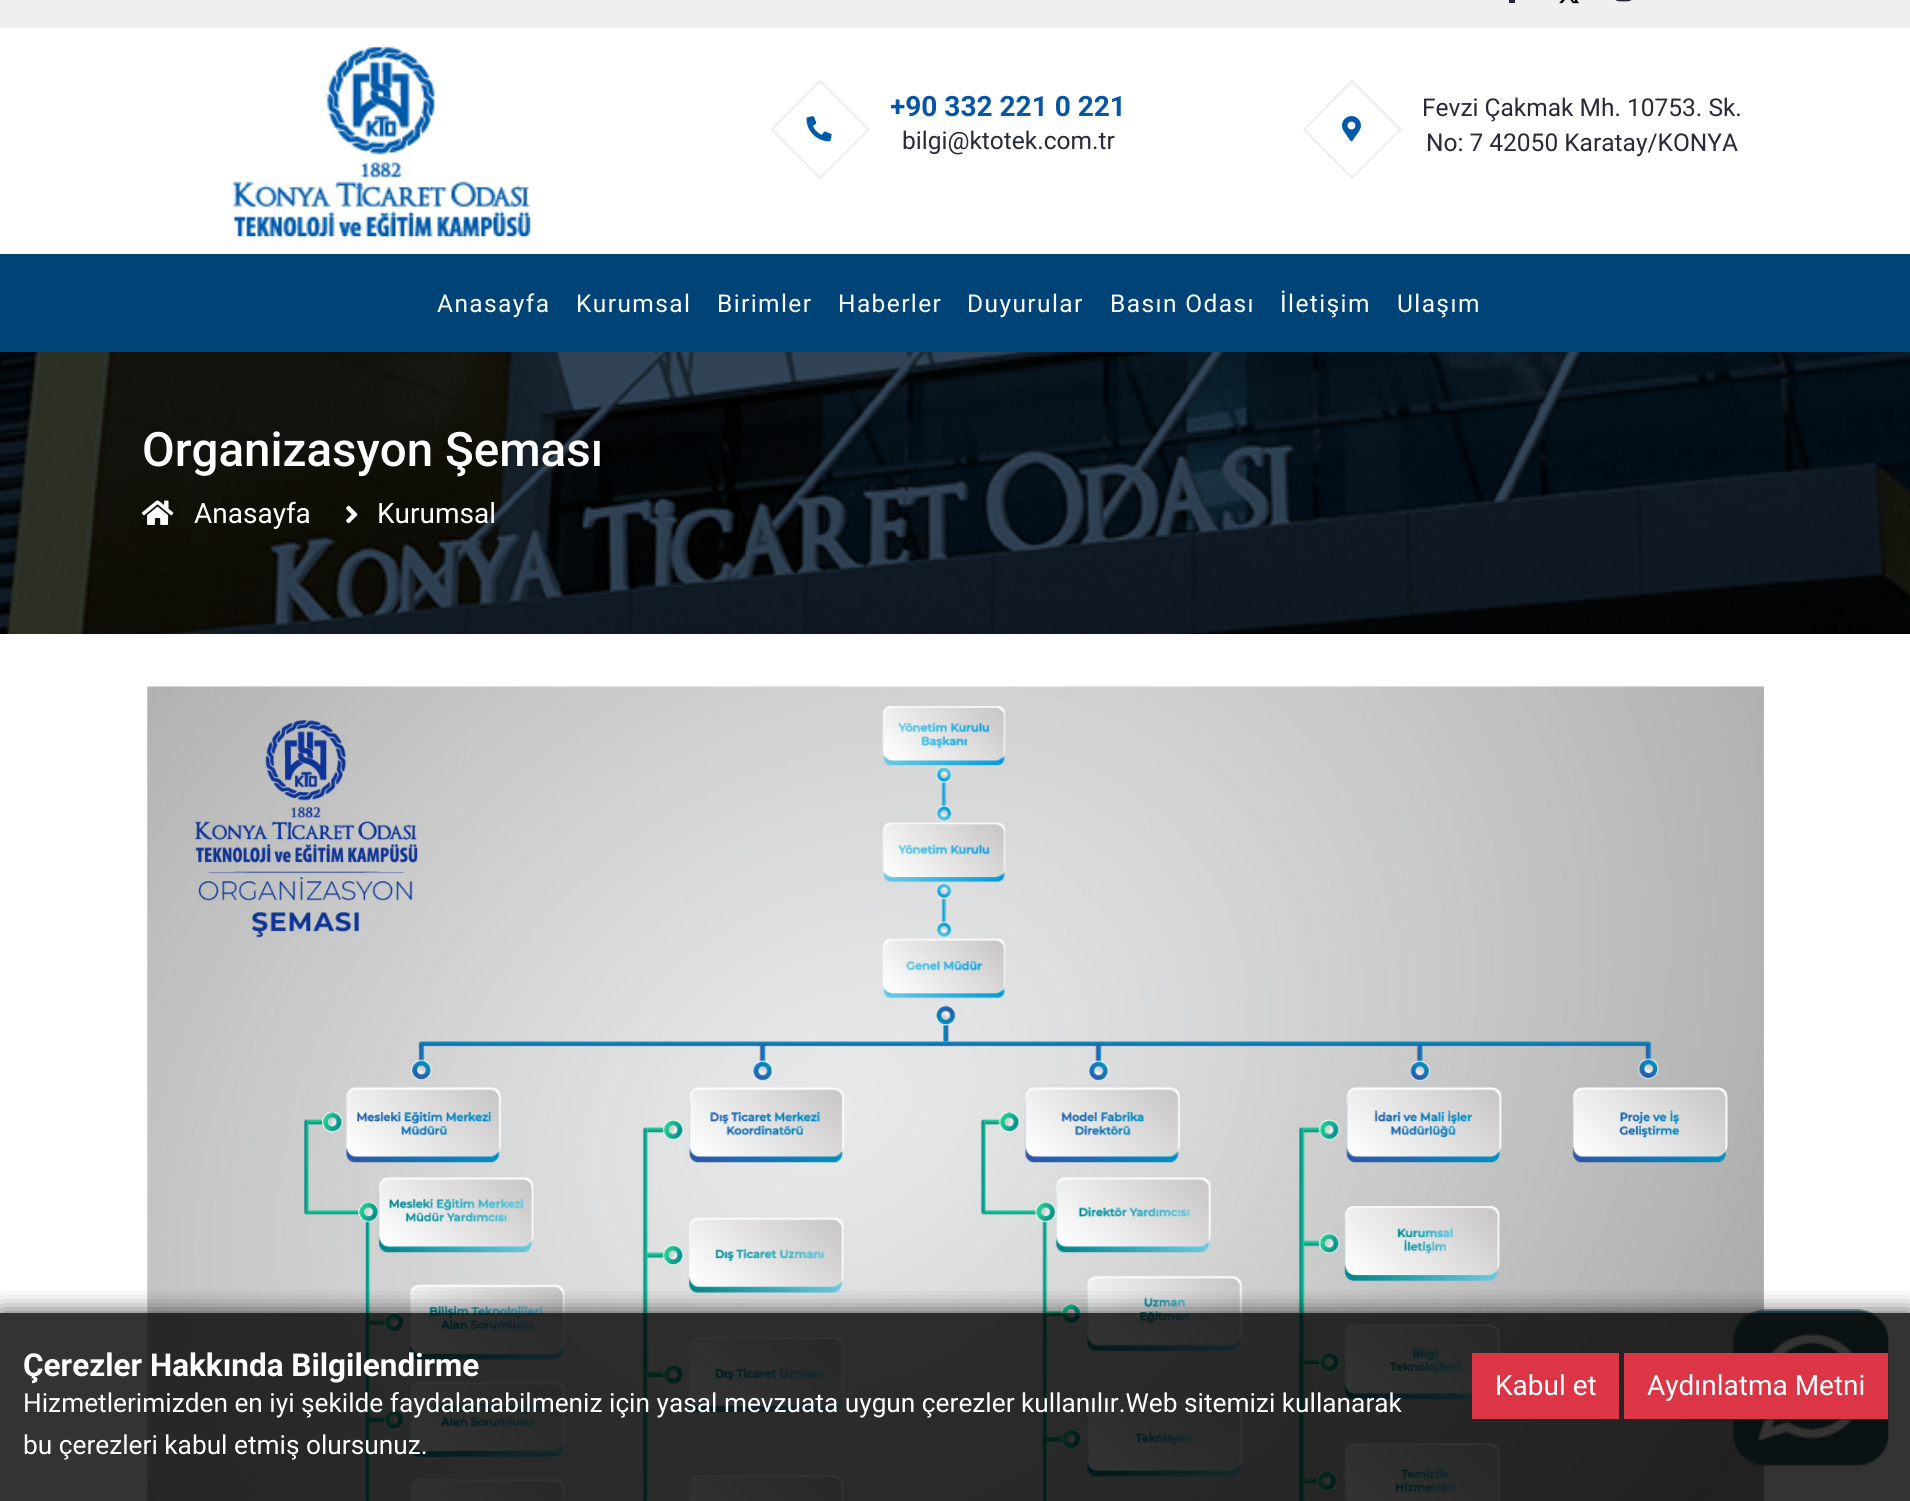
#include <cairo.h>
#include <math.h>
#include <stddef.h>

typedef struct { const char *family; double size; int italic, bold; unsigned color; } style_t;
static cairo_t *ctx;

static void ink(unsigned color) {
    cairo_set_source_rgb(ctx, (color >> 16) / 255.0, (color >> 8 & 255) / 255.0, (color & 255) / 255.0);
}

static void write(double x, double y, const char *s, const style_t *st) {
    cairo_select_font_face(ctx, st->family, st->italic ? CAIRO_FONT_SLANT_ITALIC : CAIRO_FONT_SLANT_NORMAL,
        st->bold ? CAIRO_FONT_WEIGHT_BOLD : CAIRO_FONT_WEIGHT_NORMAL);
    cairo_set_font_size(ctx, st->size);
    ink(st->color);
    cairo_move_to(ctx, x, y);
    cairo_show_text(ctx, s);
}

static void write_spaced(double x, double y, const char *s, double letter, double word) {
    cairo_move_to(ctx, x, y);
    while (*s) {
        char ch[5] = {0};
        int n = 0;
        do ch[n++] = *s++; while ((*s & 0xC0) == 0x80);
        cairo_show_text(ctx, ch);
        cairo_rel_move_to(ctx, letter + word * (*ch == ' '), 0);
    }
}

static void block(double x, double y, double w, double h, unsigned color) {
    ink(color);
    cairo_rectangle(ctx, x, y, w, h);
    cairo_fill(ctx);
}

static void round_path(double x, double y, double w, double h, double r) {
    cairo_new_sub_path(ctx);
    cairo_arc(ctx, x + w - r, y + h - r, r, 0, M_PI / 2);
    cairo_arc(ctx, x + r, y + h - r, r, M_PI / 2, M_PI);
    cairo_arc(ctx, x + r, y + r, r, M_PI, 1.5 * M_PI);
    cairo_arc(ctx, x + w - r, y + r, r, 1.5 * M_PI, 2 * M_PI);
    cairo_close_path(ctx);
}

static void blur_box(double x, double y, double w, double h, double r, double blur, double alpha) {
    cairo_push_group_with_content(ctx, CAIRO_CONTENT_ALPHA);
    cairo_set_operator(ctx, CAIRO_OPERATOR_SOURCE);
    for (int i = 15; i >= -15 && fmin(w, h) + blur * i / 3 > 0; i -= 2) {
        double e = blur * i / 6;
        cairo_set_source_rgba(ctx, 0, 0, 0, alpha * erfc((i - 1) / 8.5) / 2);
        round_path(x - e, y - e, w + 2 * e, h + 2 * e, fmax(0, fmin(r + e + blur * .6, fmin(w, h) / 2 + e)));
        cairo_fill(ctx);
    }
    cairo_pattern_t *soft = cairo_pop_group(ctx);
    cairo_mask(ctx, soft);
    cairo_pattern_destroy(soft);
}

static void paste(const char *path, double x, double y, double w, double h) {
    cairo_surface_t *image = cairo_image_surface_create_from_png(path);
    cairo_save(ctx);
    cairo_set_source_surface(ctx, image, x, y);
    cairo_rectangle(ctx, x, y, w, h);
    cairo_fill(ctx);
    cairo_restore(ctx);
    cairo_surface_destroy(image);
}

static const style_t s1 = {"Roboto", 28, 0, 1, 0x0655a6};
static const style_t s2 = {"Roboto", 24.5, 0, 0, 0x28293a};
static const style_t s3 = {"Roboto Medium", 47.5, 0, 0, 0xffffff};
static const style_t s4 = {"Roboto", 28, 0, 0, 0xffffff};
static const style_t s5 = {"Roboto", 31.5, 0, 1, 0xffffff};
static const style_t s6 = {"Roboto", 26.25, 0, 0, 0xffffff};

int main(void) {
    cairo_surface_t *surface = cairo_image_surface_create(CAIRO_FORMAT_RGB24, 1910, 1501);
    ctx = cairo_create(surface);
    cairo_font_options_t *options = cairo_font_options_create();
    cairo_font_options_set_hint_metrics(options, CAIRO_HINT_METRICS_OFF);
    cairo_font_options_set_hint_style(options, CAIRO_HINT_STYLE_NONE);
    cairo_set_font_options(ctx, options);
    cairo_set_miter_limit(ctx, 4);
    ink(0xffffff);
    cairo_paint(ctx);
    block(0, 0, 1910, 28, 0xedeff1);
    block(1509, 0, 6, 3, 0x28293a);
    paste("pic1.png", 1559, 0, 20, 4);
    paste("pic2.png", 1615, 0, 17, 2);
    paste("pic3.png", 232, 46, 299, 191);
    cairo_new_path(ctx);
    cairo_move_to(ctx, 820, 81);
    cairo_line_to(ctx, 868.5, 129.5);
    cairo_line_to(ctx, 820, 178);
    cairo_line_to(ctx, 772, 129.5);
    cairo_close_path(ctx);
    ink(0xebebeb);
    cairo_set_line_width(ctx, 1.8);
    cairo_stroke(ctx);
    paste("pic4.png", 806, 116, 26, 26);
    cairo_save(ctx);
    cairo_rectangle(ctx, 891, 89, 234, 76);
    cairo_clip(ctx);
    write(890, 116, "+90 332 221 0 221", &s1);
    cairo_restore(ctx);
    write(902, 149, "bilgi@ktotek.com.tr", &s2);
    cairo_new_path(ctx);
    cairo_move_to(ctx, 1352, 81);
    cairo_line_to(ctx, 1400.5, 129.5);
    cairo_line_to(ctx, 1352, 178);
    cairo_line_to(ctx, 1304, 129.5);
    cairo_close_path(ctx);
    ink(0xebebeb);
    cairo_stroke(ctx);
    paste("pic5.png", 1342, 116, 19, 26);
    write(1422, 116, "Fevzi Çakmak Mh. 10753. Sk.", &s2);
    write(1426, 151, "No: 7 42050 Karatay/KONYA", &s2);
    block(0, 254, 1910, 98, 0x004477);
    ink(0xffffff);
    write_spaced(437, 312, "Anasayfa", 1.4, 0);
    write_spaced(576, 312, "Kurumsal", 1.4, 0);
    write_spaced(717, 312, "Birimler", 1.4, 0);
    write_spaced(838, 312, "Haberler", 1.4, 0);
    write_spaced(967, 312, "Duyurular", 1.4, 0);
    write_spaced(1110, 312, "Basın Odası", 1.4, 0);
    write_spaced(1280, 312, "İletişim", 1.4, 0);
    write_spaced(1397, 312, "Ulaşım", 1.4, 0);
    paste("pic6.png", 0, 352, 1910, 282);
    write(142, 466, "Organizasyon Şeması", &s3);
    paste("pic7.png", 141, 500, 33, 25);
    write(194, 523, "Anasayfa", &s4);
    paste("pic8.png", 346, 505, 12, 19);
    write(377, 523, "Kurumsal", &s4);
    paste("pic9.png", 147, 686, 1617, 815);
    paste("pic10.png", 1732, 1309, 157, 158);
    cairo_save(ctx);
    cairo_rectangle(ctx, 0, 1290, 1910, 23);
    cairo_clip(ctx);
    ink(0x000000);
    blur_box(0, 1313, 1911, 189, 0, 12, 0.7);
    cairo_restore(ctx);
    cairo_set_source_rgba(ctx, 0, 0, 0, 0.8);
    cairo_rectangle(ctx, 0, 1313, 1910, 188);
    cairo_fill(ctx);
    write(23, 1376, "Çerezler Hakkında Bilgilendirme", &s5);
    write(23, 1412, "Hizmetlerimizden en iyi şekilde faydalanabilmeniz için yasal mevzuata uygun çerezler kullanılır.Web sitemizi kullanarak", &s6);
    write(23, 1454, "bu çerezleri kabul etmiş olursunuz.", &s6);
    block(1472, 1353, 147, 66, 0xdc3545);
    write(1495, 1395, "Kabul et", &s4);
    block(1624, 1353, 264, 66, 0xdc3545);
    write(1647, 1395, "Aydınlatma Metni", &s4);
    cairo_surface_write_to_png(surface, "screenshot.png");
    cairo_font_options_destroy(options);
    cairo_destroy(ctx);
    cairo_surface_destroy(surface);
    return 0;
}
